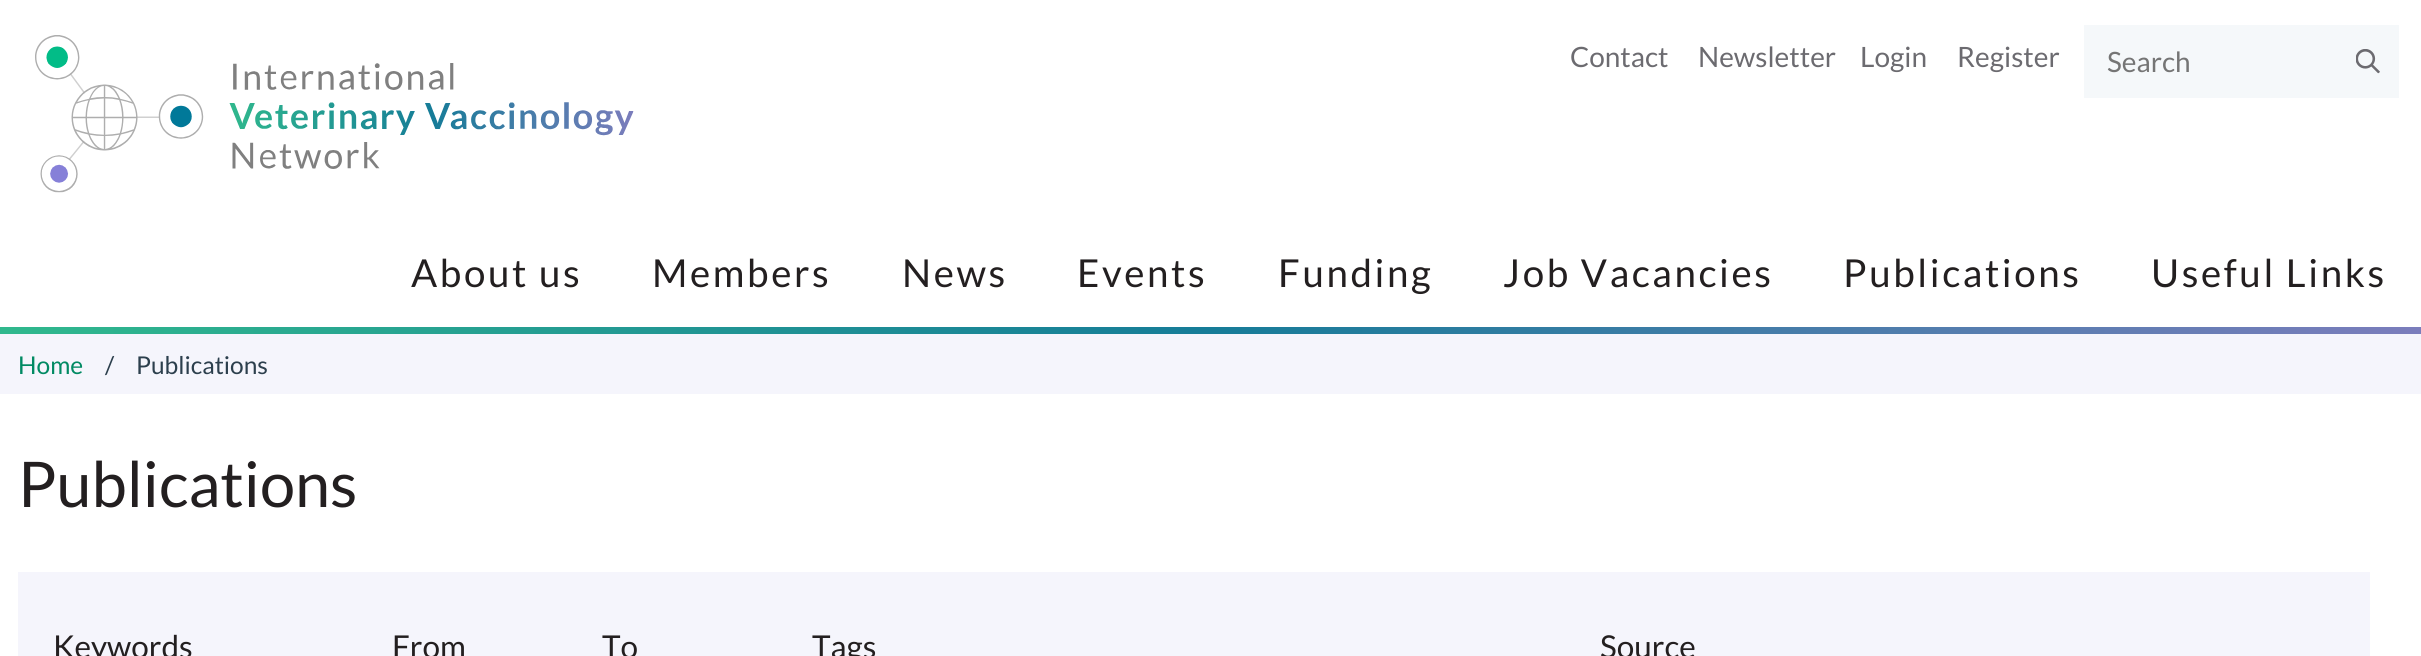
#include <cairo.h>
#include <math.h>
#include <stddef.h>

typedef struct { const char *family; double size; int italic, bold; unsigned color; } style_t;
static cairo_t *ctx;

static void ink(unsigned color) {
    cairo_set_source_rgb(ctx, (color >> 16) / 255.0, (color >> 8 & 255) / 255.0, (color & 255) / 255.0);
}

static void write(double x, double y, const char *s, const style_t *st) {
    cairo_select_font_face(ctx, st->family, st->italic ? CAIRO_FONT_SLANT_ITALIC : CAIRO_FONT_SLANT_NORMAL,
        st->bold ? CAIRO_FONT_WEIGHT_BOLD : CAIRO_FONT_WEIGHT_NORMAL);
    cairo_set_font_size(ctx, st->size);
    ink(st->color);
    cairo_move_to(ctx, x, y);
    cairo_show_text(ctx, s);
}

static void write_spaced(double x, double y, const char *s, double letter, double word) {
    cairo_move_to(ctx, x, y);
    while (*s) {
        char ch[5] = {0};
        int n = 0;
        do ch[n++] = *s++; while ((*s & 0xC0) == 0x80);
        cairo_show_text(ctx, ch);
        cairo_rel_move_to(ctx, letter + word * (*ch == ' '), 0);
    }
}

static void block(double x, double y, double w, double h, unsigned color) {
    ink(color);
    cairo_rectangle(ctx, x, y, w, h);
    cairo_fill(ctx);
}

static void paste(const char *path, double x, double y, double w, double h) {
    cairo_surface_t *image = cairo_image_surface_create_from_png(path);
    cairo_save(ctx);
    cairo_set_source_surface(ctx, image, x, y);
    cairo_rectangle(ctx, x, y, w, h);
    cairo_fill(ctx);
    cairo_restore(ctx);
    cairo_surface_destroy(image);
}

static const style_t s1 = {"Lato", 28, 0, 0, 0x6c6b70};
static const style_t s2 = {"Lato", 28, 0, 0, 0x757575};
static const style_t s3 = {"Lato", 24.5, 0, 0, 0x018a63};
static const style_t s4 = {"Lato", 24.5, 0, 0, 0x2c3f4d};
static const style_t s5 = {"Lato", 63, 0, 0, 0x231f20};
static const style_t s6 = {"Lato", 31.5, 0, 0, 0x231f20};

int main(void) {
    cairo_surface_t *surface = cairo_image_surface_create(CAIRO_FORMAT_RGB24, 2421, 656);
    ctx = cairo_create(surface);
    cairo_font_options_t *options = cairo_font_options_create();
    cairo_font_options_set_hint_metrics(options, CAIRO_HINT_METRICS_OFF);
    cairo_font_options_set_hint_style(options, CAIRO_HINT_STYLE_NONE);
    cairo_set_font_options(ctx, options);
    cairo_set_miter_limit(ctx, 4);
    cairo_pattern_t *gradient;
    ink(0xffffff);
    cairo_paint(ctx);
    paste("pic1.png", 35, 35, 599, 158);
    write(1570, 67, "Contact", &s1);
    write(1698, 67, "Newsletter", &s1);
    write(1860, 67, "Login", &s1);
    write(1957, 67, "Register", &s1);
    block(2084, 25, 315, 73, 0xf5f8fa);
    write(2107, 72, "Search", &s2);
    paste("pic2.png", 2356, 49, 24, 25);
    cairo_set_font_size(ctx, 38.5);
    ink(0x231f20);
    write_spaced(411, 287, "About us", 2.6, 0);
    write_spaced(652, 287, "Members", 2.6, 0);
    write_spaced(902, 287, "News", 2.6, 0);
    write_spaced(1077, 287, "Events", 2.6, 0);
    write_spaced(1278, 287, "Funding", 2.6, 0);
    write_spaced(1503, 287, "Job Vacancies", 2.6, 0);
    write_spaced(1843, 287, "Publications", 2.6, 0);
    write_spaced(2151, 287, "Useful Links", 2.6, 0);
    gradient = cairo_pattern_create_linear(0, 331, 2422, 331);
    cairo_pattern_add_color_stop_rgba(gradient, 0, 0.188, 0.722, 0.553, 1);
    cairo_pattern_add_color_stop_rgba(gradient, 0.5, 0.086, 0.486, 0.596, 1);
    cairo_pattern_add_color_stop_rgba(gradient, 1, 0.482, 0.49, 0.737, 1);
    cairo_set_source(ctx, gradient);
    cairo_pattern_destroy(gradient);
    cairo_rectangle(ctx, 0, 327, 2421, 7);
    cairo_fill(ctx);
    block(0, 334, 2421, 60, 0xf5f5fc);
    write(18, 374, "Home", &s3);
    write(105, 374, "/", &s4);
    write(136, 374, "Publications", &s4);
    write(18, 507, "Publications", &s5);
    block(18, 572, 2352, 84, 0xf5f5fc);
    write(53, 658, "Keywords", &s6);
    write(392, 658, "From", &s6);
    write(602, 658, "To", &s6);
    write(812, 658, "Tags", &s6);
    write(1600, 658, "Source", &s6);
    cairo_surface_write_to_png(surface, "screenshot.png");
    cairo_font_options_destroy(options);
    cairo_destroy(ctx);
    cairo_surface_destroy(surface);
    return 0;
}
